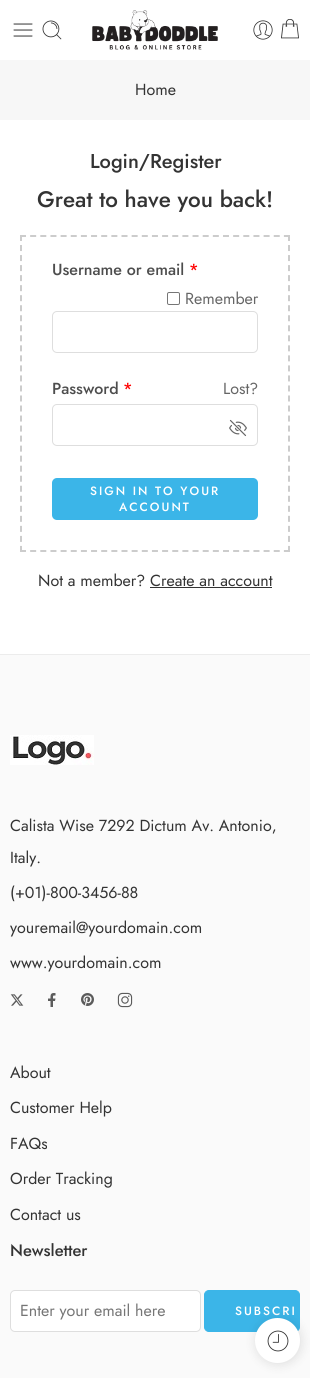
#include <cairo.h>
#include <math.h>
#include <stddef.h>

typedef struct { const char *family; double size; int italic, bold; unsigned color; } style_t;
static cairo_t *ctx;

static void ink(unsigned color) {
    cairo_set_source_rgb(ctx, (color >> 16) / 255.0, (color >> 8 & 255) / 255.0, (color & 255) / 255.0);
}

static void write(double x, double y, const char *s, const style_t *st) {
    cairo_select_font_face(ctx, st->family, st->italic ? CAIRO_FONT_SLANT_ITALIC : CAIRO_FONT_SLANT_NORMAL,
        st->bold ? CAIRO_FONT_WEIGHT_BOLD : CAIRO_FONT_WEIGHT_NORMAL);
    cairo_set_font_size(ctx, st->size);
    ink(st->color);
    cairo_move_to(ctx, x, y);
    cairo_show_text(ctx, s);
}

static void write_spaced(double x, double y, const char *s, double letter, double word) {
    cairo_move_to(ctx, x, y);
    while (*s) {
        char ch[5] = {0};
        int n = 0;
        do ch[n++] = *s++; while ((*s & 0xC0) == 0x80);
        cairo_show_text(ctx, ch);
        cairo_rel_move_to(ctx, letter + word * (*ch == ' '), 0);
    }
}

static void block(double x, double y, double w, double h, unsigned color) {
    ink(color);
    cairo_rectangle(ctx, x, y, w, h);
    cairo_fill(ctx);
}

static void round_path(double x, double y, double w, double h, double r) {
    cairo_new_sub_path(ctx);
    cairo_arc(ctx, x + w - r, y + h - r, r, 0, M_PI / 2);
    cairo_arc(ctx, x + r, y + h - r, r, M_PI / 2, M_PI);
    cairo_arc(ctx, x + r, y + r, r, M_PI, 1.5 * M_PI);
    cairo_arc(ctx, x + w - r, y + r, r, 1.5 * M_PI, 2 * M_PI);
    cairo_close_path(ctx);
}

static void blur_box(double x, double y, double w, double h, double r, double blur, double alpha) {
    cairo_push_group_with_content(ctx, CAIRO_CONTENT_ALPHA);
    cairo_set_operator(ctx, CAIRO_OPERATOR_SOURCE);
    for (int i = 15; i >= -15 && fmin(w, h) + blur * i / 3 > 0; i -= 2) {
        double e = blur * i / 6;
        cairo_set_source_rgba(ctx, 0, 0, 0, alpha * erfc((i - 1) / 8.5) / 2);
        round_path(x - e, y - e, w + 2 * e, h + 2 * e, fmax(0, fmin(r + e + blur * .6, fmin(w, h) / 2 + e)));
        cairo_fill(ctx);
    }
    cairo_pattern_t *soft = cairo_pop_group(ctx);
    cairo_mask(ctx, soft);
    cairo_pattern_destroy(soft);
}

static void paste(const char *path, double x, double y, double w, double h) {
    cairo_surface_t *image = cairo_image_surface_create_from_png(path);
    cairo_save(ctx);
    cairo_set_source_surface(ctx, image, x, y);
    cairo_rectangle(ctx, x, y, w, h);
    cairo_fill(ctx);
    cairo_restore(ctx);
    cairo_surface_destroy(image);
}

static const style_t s1 = {"Jost", 16, 0, 0, 0x333333};
static const style_t s2 = {"Jost Medium", 20, 0, 0, 0x333333};
static const style_t s3 = {"Jost Medium", 22.4, 0, 0, 0x333333};
static const style_t s4 = {"Jost Medium", 16, 0, 0, 0x4d4d4d};
static const style_t s5 = {"Jost Medium", 16, 0, 0, 0xff0000};
static const style_t s6 = {"Jost", 16, 0, 0, 0x666666};
static const style_t s7 = {"Jost Medium", 16.5, 0, 0, 0x333333};
static const style_t s8 = {"Jost", 16, 0, 0, 0x757575};

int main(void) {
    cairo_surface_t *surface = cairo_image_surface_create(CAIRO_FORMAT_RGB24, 310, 1378);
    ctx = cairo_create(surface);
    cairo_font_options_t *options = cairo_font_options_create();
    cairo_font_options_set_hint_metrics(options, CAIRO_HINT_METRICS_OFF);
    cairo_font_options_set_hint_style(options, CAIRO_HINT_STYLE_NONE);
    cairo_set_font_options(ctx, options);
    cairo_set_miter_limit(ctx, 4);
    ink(0xffffff);
    cairo_paint(ctx);
    paste("pic1.png", 13, 23, 20, 14);
    paste("pic2.png", 42, 20, 20, 20);
    paste("pic3.png", 92, 10, 126, 40);
    paste("pic4.png", 253, 20, 20, 20);
    paste("pic5.png", 281, 19, 18, 20);
    block(0, 60, 310, 60, 0xf7f7f7);
    write(135, 95, "Home", &s1);
    write(90, 168, "Login/Register", &s2);
    write(37, 207, "Great to have you back!", &s3);
    cairo_new_path(ctx);
    cairo_move_to(ctx, 20, 236);
    cairo_line_to(ctx, 290, 236);
    ink(0xcccccc);
    cairo_set_dash(ctx, (double[]){6, 4.15}, 2, 0);
    cairo_stroke(ctx);
    cairo_new_path(ctx);
    cairo_move_to(ctx, 289, 235);
    cairo_line_to(ctx, 289, 552);
    cairo_set_dash(ctx, (double[]){6, 4.03}, 2, 0);
    cairo_stroke(ctx);
    cairo_new_path(ctx);
    cairo_move_to(ctx, 20, 551);
    cairo_line_to(ctx, 290, 551);
    cairo_set_dash(ctx, (double[]){6, 4.15}, 2, 0);
    cairo_stroke(ctx);
    cairo_new_path(ctx);
    cairo_move_to(ctx, 21, 235);
    cairo_line_to(ctx, 21, 552);
    cairo_set_dash(ctx, (double[]){6, 4.03}, 2, 0);
    cairo_stroke(ctx);
    write(52, 275, "Username or email", &s4);
    write(189, 275, "*", &s5);
    round_path(167.5, 292.5, 12, 12, 1.5);
    ink(0x767676);
    cairo_set_line_width(ctx, 1);
    cairo_set_dash(ctx, NULL, 0, 0);
    cairo_stroke(ctx);
    write(185, 304, "Remember", &s6);
    round_path(52.5, 311.5, 205, 41, 4.5);
    ink(0xdedede);
    cairo_stroke(ctx);
    write(52, 394, "Password", &s4);
    write(123, 394, "*", &s5);
    write(223, 394, "Lost?", &s6);
    round_path(52.5, 404.5, 205, 41, 4.5);
    ink(0xdedede);
    cairo_stroke(ctx);
    paste("pic6.png", 229, 419, 18, 18);
    ink(0x3bb5e8);
    round_path(52, 478, 206, 42, 5);
    cairo_fill(ctx);
    cairo_select_font_face(ctx, "Jost Medium", CAIRO_FONT_SLANT_NORMAL, CAIRO_FONT_WEIGHT_NORMAL);
    cairo_set_font_size(ctx, 12);
    ink(0xffffff);
    write_spaced(90, 495, "SIGN IN TO YOUR", 2, 0);
    write_spaced(119, 511, "ACCOUNT", 2, 0);
    write(38, 586, "Not a member? Create an account", &s1);
    block(150, 587, 122, 1, 0x333333);
    block(0, 655, 310, 723, 0xfafafa);
    block(0, 654, 310, 1, 0xececec);
    paste("pic7.png", 10, 735, 84, 30);
    write(10, 831, "Calista Wise 7292 Dictum Av. Antonio,", &s1);
    write(10, 863, "Italy.", &s1);
    write(10, 898, "(+01)-800-3456-88", &s1);
    write(10, 933, "youremail@yourdomain.com", &s1);
    write(10, 968, "www.yourdomain.com", &s1);
    paste("pic8.png", 10, 994, 14, 12);
    paste("pic9.png", 48, 993, 8, 14);
    paste("pic10.png", 81, 993, 13, 13);
    paste("pic11.png", 117, 992, 16, 16);
    write(10, 1078, "About", &s1);
    write(10, 1113, "Customer Help", &s1);
    write(10, 1149, "FAQs", &s1);
    write(10, 1184, "Order Tracking", &s1);
    write(10, 1220, "Contact us", &s1);
    write(10, 1256, "Newsletter", &s7);
    ink(0xffffff);
    round_path(10.5, 1290.5, 190, 41, 4.5);
    cairo_fill_preserve(ctx);
    ink(0xdedede);
    cairo_stroke(ctx);
    write(20, 1316, "Enter your email here", &s8);
    ink(0x3bb5e8);
    round_path(204.5, 1290.5, 95, 41, 4.5);
    cairo_fill_preserve(ctx);
    cairo_stroke(ctx);
    cairo_select_font_face(ctx, "Jost Medium", CAIRO_FONT_SLANT_NORMAL, CAIRO_FONT_WEIGHT_NORMAL);
    cairo_set_font_size(ctx, 12);
    ink(0xffffff);
    write_spaced(235, 1315, "SUBSCRI", 2, 0);
    ink(0x000000);
    blur_box(255, 1318, 47, 47, 23.5, 5, 0.1);
    ink(0xffffff);
    cairo_arc(ctx, 277.5, 1340.5, 22.5, 0, 2 * M_PI);
    cairo_fill(ctx);
    paste("pic12.png", 267, 1330, 22, 22);
    cairo_surface_write_to_png(surface, "screenshot.png");
    cairo_font_options_destroy(options);
    cairo_destroy(ctx);
    cairo_surface_destroy(surface);
    return 0;
}
